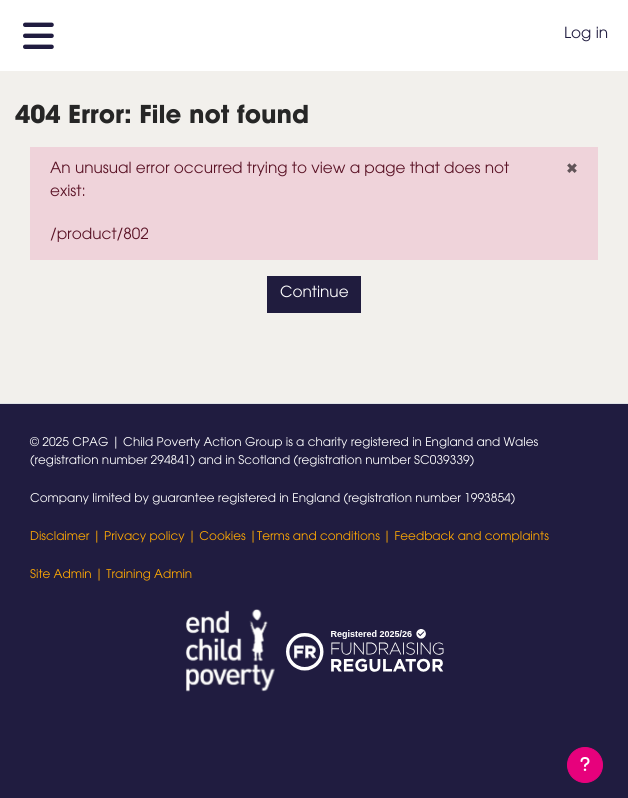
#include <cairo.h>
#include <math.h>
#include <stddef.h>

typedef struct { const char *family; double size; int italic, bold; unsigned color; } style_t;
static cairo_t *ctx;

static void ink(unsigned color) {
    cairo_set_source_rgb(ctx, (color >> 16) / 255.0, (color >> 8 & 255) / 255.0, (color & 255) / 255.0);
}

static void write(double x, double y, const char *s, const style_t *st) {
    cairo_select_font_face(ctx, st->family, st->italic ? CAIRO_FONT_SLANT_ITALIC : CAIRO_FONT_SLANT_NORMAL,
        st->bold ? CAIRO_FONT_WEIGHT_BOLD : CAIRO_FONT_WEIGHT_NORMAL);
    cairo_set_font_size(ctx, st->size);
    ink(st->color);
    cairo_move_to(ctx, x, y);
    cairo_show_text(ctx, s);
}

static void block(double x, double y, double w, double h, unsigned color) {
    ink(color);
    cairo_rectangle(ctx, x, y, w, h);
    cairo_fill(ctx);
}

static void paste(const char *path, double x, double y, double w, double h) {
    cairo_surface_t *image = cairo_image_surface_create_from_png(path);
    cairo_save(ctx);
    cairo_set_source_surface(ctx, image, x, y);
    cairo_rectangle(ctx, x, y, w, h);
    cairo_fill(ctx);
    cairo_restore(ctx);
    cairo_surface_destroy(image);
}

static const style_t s1 = {"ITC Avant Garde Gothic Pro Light", 15.3, 0, 0, 0x201c40};
static const style_t s2 = {"ITC Avant Garde Gothic Pro", 24.5, 0, 1, 0x262626};
static const style_t s3 = {"ITC Avant Garde Gothic Pro Light", 15.3, 0, 0, 0x5a1225};
static const style_t s4 = {"ITC Avant Garde Gothic Pro", 20, 0, 1, 0x615458};
static const style_t s5 = {"ITC Avant Garde Gothic Pro Light", 15.3, 0, 0, 0xffffff};
static const style_t s6 = {"ITC Avant Garde Gothic Pro Light", 12, 0, 0, 0xffffff};
static const style_t s7 = {"ITC Avant Garde Gothic Pro Light", 12, 0, 0, 0xffa902};

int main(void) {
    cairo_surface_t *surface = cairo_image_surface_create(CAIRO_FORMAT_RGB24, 628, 798);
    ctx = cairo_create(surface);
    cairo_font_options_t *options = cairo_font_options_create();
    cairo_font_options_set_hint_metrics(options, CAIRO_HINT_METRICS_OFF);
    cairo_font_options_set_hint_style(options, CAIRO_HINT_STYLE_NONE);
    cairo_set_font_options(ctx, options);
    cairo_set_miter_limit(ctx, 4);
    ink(0xf2f0ec);
    cairo_paint(ctx);
    block(0, 0, 628, 71, 0xffffff);
    paste("pic1.png", 23, 22, 31, 27);
    write(564, 38, "Log in", &s1);
    write(15, 123, "404 Error: File not found", &s2);
    block(30, 147, 568, 113, 0xefd3da);
    write(50, 173, "An unusual error occurred trying to view a page that does not", &s3);
    write(50, 196, "exist:", &s3);
    write(566, 173, "×", &s4);
    write(50, 239, "/product/802", &s3);
    block(267, 276, 94, 37, 0x201c3e);
    write(280, 297, "Continue", &s5);
    block(0, 404, 628, 394, 0x201c40);
    block(0, 403, 628, 1, 0xdee2e6);
    write(30, 446, "© 2025 CPAG | Child Poverty Action Group is a charity registered in England and Wales", &s6);
    write(30, 464, "(registration number 294841) and in Scotland (registration number SC039339)", &s6);
    write(30, 502, "Company limited by guarantee registered in England (registration number 1993854)", &s6);
    write(30, 540, "Disclaimer | Privacy policy | Cookies |Terms and conditions | Feedback and complaints", &s7);
    write(30, 578, "Site Admin | Training Admin", &s7);
    paste("pic2.png", 185, 609, 90, 83);
    paste("pic3.png", 286, 629, 158, 43);
    ink(0xe7017c);
    cairo_arc(ctx, 585, 765, 17.5, 0, 2 * M_PI);
    cairo_fill_preserve(ctx);
    cairo_set_line_width(ctx, 1);
    cairo_stroke(ctx);
    paste("pic4.png", 580, 757, 10, 14);
    cairo_surface_write_to_png(surface, "screenshot.png");
    cairo_font_options_destroy(options);
    cairo_destroy(ctx);
    cairo_surface_destroy(surface);
    return 0;
}
